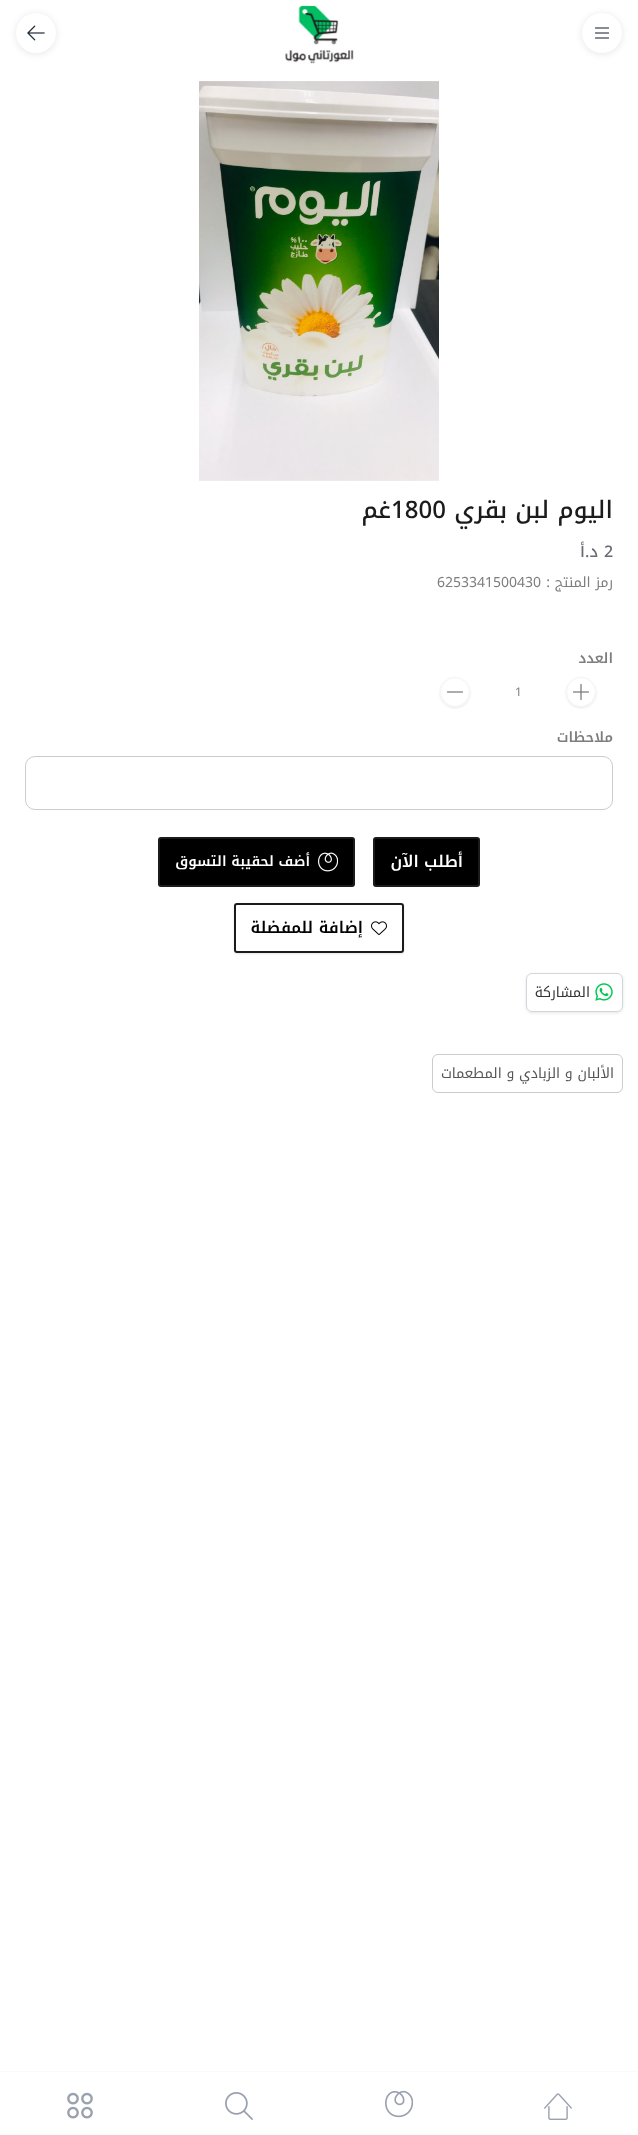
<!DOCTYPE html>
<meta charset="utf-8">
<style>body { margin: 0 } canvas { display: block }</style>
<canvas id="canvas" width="638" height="2135"></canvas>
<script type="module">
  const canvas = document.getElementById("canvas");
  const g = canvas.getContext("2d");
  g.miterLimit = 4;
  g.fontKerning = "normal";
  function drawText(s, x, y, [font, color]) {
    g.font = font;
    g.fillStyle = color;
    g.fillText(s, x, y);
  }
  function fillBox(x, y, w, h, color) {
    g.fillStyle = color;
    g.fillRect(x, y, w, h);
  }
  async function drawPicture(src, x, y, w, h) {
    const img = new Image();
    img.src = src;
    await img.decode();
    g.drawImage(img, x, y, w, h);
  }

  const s1 = ["500 24px Noto Kufi Arabic", "#1B1B1B"];
  const s2 = ["500 16px Noto Kufi Arabic", "#6C6A74"];
  const s3 = ["14px Noto Kufi Arabic", "#7D7D7D"];
  const s4 = ["600 14px Noto Kufi Arabic", "#7D7D7D"];
  const s5 = ["12px Noto Kufi Arabic", "#7D7D7D"];
  const s6 = ["600 16px Noto Kufi Arabic", "#FFFFFF"];
  const s7 = ["600 14px Noto Kufi Arabic", "#FFFFFF"];
  const s8 = ["600 16px Noto Kufi Arabic", "#000000"];
  const s9 = ["14px Noto Kufi Arabic", "#333333"];
  const s10 = ["14px Noto Kufi Arabic", "#555555"];

  fillBox(0, 0, 638, 2135, "#FFFFFF");
  g.fillStyle = "rgba(0, 0, 0, 0.1)";
  g.filter = "blur(3.5px)";
  g.beginPath();
  g.roundRect(582, 14, 40, 40, 20);
  g.fill();
  g.filter = "none";
  g.fillStyle = "#FFFFFF";
  g.beginPath();
  g.arc(602, 33, 20, 0, Math.PI * 2);
  g.fill();
  await drawPicture("pic1.png", 595, 27, 14, 12);
  await drawPicture("pic2.png", 285, 5, 69, 59);
  g.fillStyle = "rgba(0, 0, 0, 0.1)";
  g.filter = "blur(3.5px)";
  g.beginPath();
  g.roundRect(16, 14, 40, 40, 20);
  g.fill();
  g.filter = "none";
  g.fillStyle = "#FFFFFF";
  g.beginPath();
  g.arc(36, 33, 20, 0, Math.PI * 2);
  g.fill();
  await drawPicture("pic3.png", 27, 25, 18, 16);
  await drawPicture("pic4.png", 199, 81, 240, 400);
  g.direction = "rtl";
  drawText("اليوم لبن بقري", 613, 518, s1);
  g.direction = "ltr";
  drawText("1800", 391, 518, s1);
  g.direction = "rtl";
  drawText("غم", 391, 518, s1);
  g.direction = "ltr";
  drawText("2", 604, 557, s2);
  g.direction = "rtl";
  drawText("د.أ", 598, 557, s2);
  drawText("رمز المنتج :", 613, 587, s3);
  g.direction = "ltr";
  drawText("6253341500430", 437, 587, s3);
  g.direction = "rtl";
  drawText("العدد", 613, 663, s4);
  g.save();
  g.beginPath();
  g.moveTo(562, 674);
  g.lineTo(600, 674);
  g.lineTo(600, 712);
  g.lineTo(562, 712);
  g.closePath();
  g.moveTo(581, 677);
  g.bezierCurveTo(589.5, 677, 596, 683.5, 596, 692);
  g.bezierCurveTo(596, 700.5, 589.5, 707, 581, 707);
  g.bezierCurveTo(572.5, 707, 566, 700.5, 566, 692);
  g.bezierCurveTo(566, 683.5, 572.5, 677, 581, 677);
  g.closePath();
  g.clip("evenodd");
  g.fillStyle = "rgba(0, 0, 0, 0.1)";
  g.filter = "blur(1px)";
  g.beginPath();
  g.roundRect(566, 678, 30, 30, 15);
  g.fill();
  g.filter = "none";
  g.restore();
  g.beginPath();
  g.arc(581, 692, 14.5, 0, Math.PI * 2);
  g.strokeStyle = "#F3F3F3";
  g.stroke();
  await drawPicture("pic5.png", 573, 684, 16, 16);
  g.direction = "ltr";
  drawText("1", 515, 696, s5);
  g.save();
  g.beginPath();
  g.moveTo(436, 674);
  g.lineTo(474, 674);
  g.lineTo(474, 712);
  g.lineTo(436, 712);
  g.closePath();
  g.moveTo(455, 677);
  g.bezierCurveTo(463.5, 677, 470, 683.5, 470, 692);
  g.bezierCurveTo(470, 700.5, 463.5, 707, 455, 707);
  g.bezierCurveTo(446.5, 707, 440, 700.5, 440, 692);
  g.bezierCurveTo(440, 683.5, 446.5, 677, 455, 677);
  g.closePath();
  g.clip("evenodd");
  g.fillStyle = "rgba(0, 0, 0, 0.1)";
  g.filter = "blur(1px)";
  g.beginPath();
  g.roundRect(440, 678, 30, 30, 15);
  g.fill();
  g.filter = "none";
  g.restore();
  g.beginPath();
  g.arc(455, 692, 14.5, 0, Math.PI * 2);
  g.stroke();
  await drawPicture("pic6.png", 447, 691, 16, 2);
  g.direction = "rtl";
  drawText("ملاحظات", 613, 742, s4);
  g.beginPath();
  g.roundRect(25.5, 756.5, 587, 53, 9.5);
  g.strokeStyle = "#CCCCCC";
  g.stroke();
  g.fillStyle = "#000000";
  g.beginPath();
  g.roundRect(374, 838, 105, 48, 2);
  g.fill();
  g.strokeStyle = "#1B1B1B";
  g.lineWidth = 2;
  g.stroke();
  drawText("أطلب الآن", 463, 867, s6);
  g.fillStyle = "#000000";
  g.beginPath();
  g.roundRect(159, 838, 195, 48, 2);
  g.fill();
  g.stroke();
  await drawPicture("pic7.png", 318, 852, 20, 20);
  drawText("أضف لحقيبة التسوق", 310, 866, s7);
  g.save();
  g.beginPath();
  g.moveTo(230, 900);
  g.lineTo(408, 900);
  g.lineTo(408, 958);
  g.lineTo(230, 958);
  g.closePath();
  g.moveTo(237, 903);
  g.lineTo(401, 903);
  g.bezierCurveTo(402.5, 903, 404, 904.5, 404, 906);
  g.lineTo(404, 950);
  g.bezierCurveTo(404, 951.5, 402.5, 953, 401, 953);
  g.lineTo(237, 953);
  g.bezierCurveTo(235.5, 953, 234, 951.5, 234, 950);
  g.lineTo(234, 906);
  g.bezierCurveTo(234, 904.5, 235.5, 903, 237, 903);
  g.closePath();
  g.clip("evenodd");
  g.fillStyle = "rgba(0, 0, 0, 0.1)";
  g.filter = "blur(1px)";
  g.beginPath();
  g.roundRect(234, 904, 170, 50, 3);
  g.fill();
  g.filter = "none";
  g.restore();
  g.beginPath();
  g.roundRect(235, 904, 168, 48, 2);
  g.stroke();
  await drawPicture("pic8.png", 371, 921, 16, 14);
  drawText("إضافة للمفضلة", 363, 933, s8);
  g.save();
  g.beginPath();
  g.moveTo(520, 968);
  g.lineTo(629, 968);
  g.lineTo(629, 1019);
  g.lineTo(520, 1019);
  g.closePath();
  g.moveTo(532, 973);
  g.lineTo(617, 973);
  g.bezierCurveTo(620.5, 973, 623, 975.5, 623, 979);
  g.lineTo(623, 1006);
  g.bezierCurveTo(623, 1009.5, 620.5, 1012, 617, 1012);
  g.lineTo(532, 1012);
  g.bezierCurveTo(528.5, 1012, 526, 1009.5, 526, 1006);
  g.lineTo(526, 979);
  g.bezierCurveTo(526, 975.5, 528.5, 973, 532, 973);
  g.closePath();
  g.clip("evenodd");
  g.fillStyle = "rgba(0, 0, 0, 0.1)";
  g.filter = "blur(1.5px)";
  g.beginPath();
  g.roundRect(526, 974, 97, 39, 6);
  g.fill();
  g.filter = "none";
  g.restore();
  g.beginPath();
  g.roundRect(526.5, 973.5, 96, 38, 5.5);
  g.strokeStyle = "#D1D5DC";
  g.lineWidth = 1;
  g.stroke();
  await drawPicture("pic9.png", 595, 983, 18, 18);
  drawText("المشاركة", 590, 997, s9);
  g.beginPath();
  g.roundRect(432.5, 1054.5, 190, 38, 5.5);
  g.strokeStyle = "#CCCCCC";
  g.stroke();
  drawText("الألبان و الزبادي و المطعمات", 614, 1078, s10);
  fillBox(0, 2071, 638, 1, "#F9FAFB");
  await drawPicture("pic10.png", 544, 2093, 28, 27);
  await drawPicture("pic11.png", 385, 2090, 28, 28);
  await drawPicture("pic12.png", 225, 2092, 28, 28);
  await drawPicture("pic13.png", 67, 2092, 26, 27);
</script>
